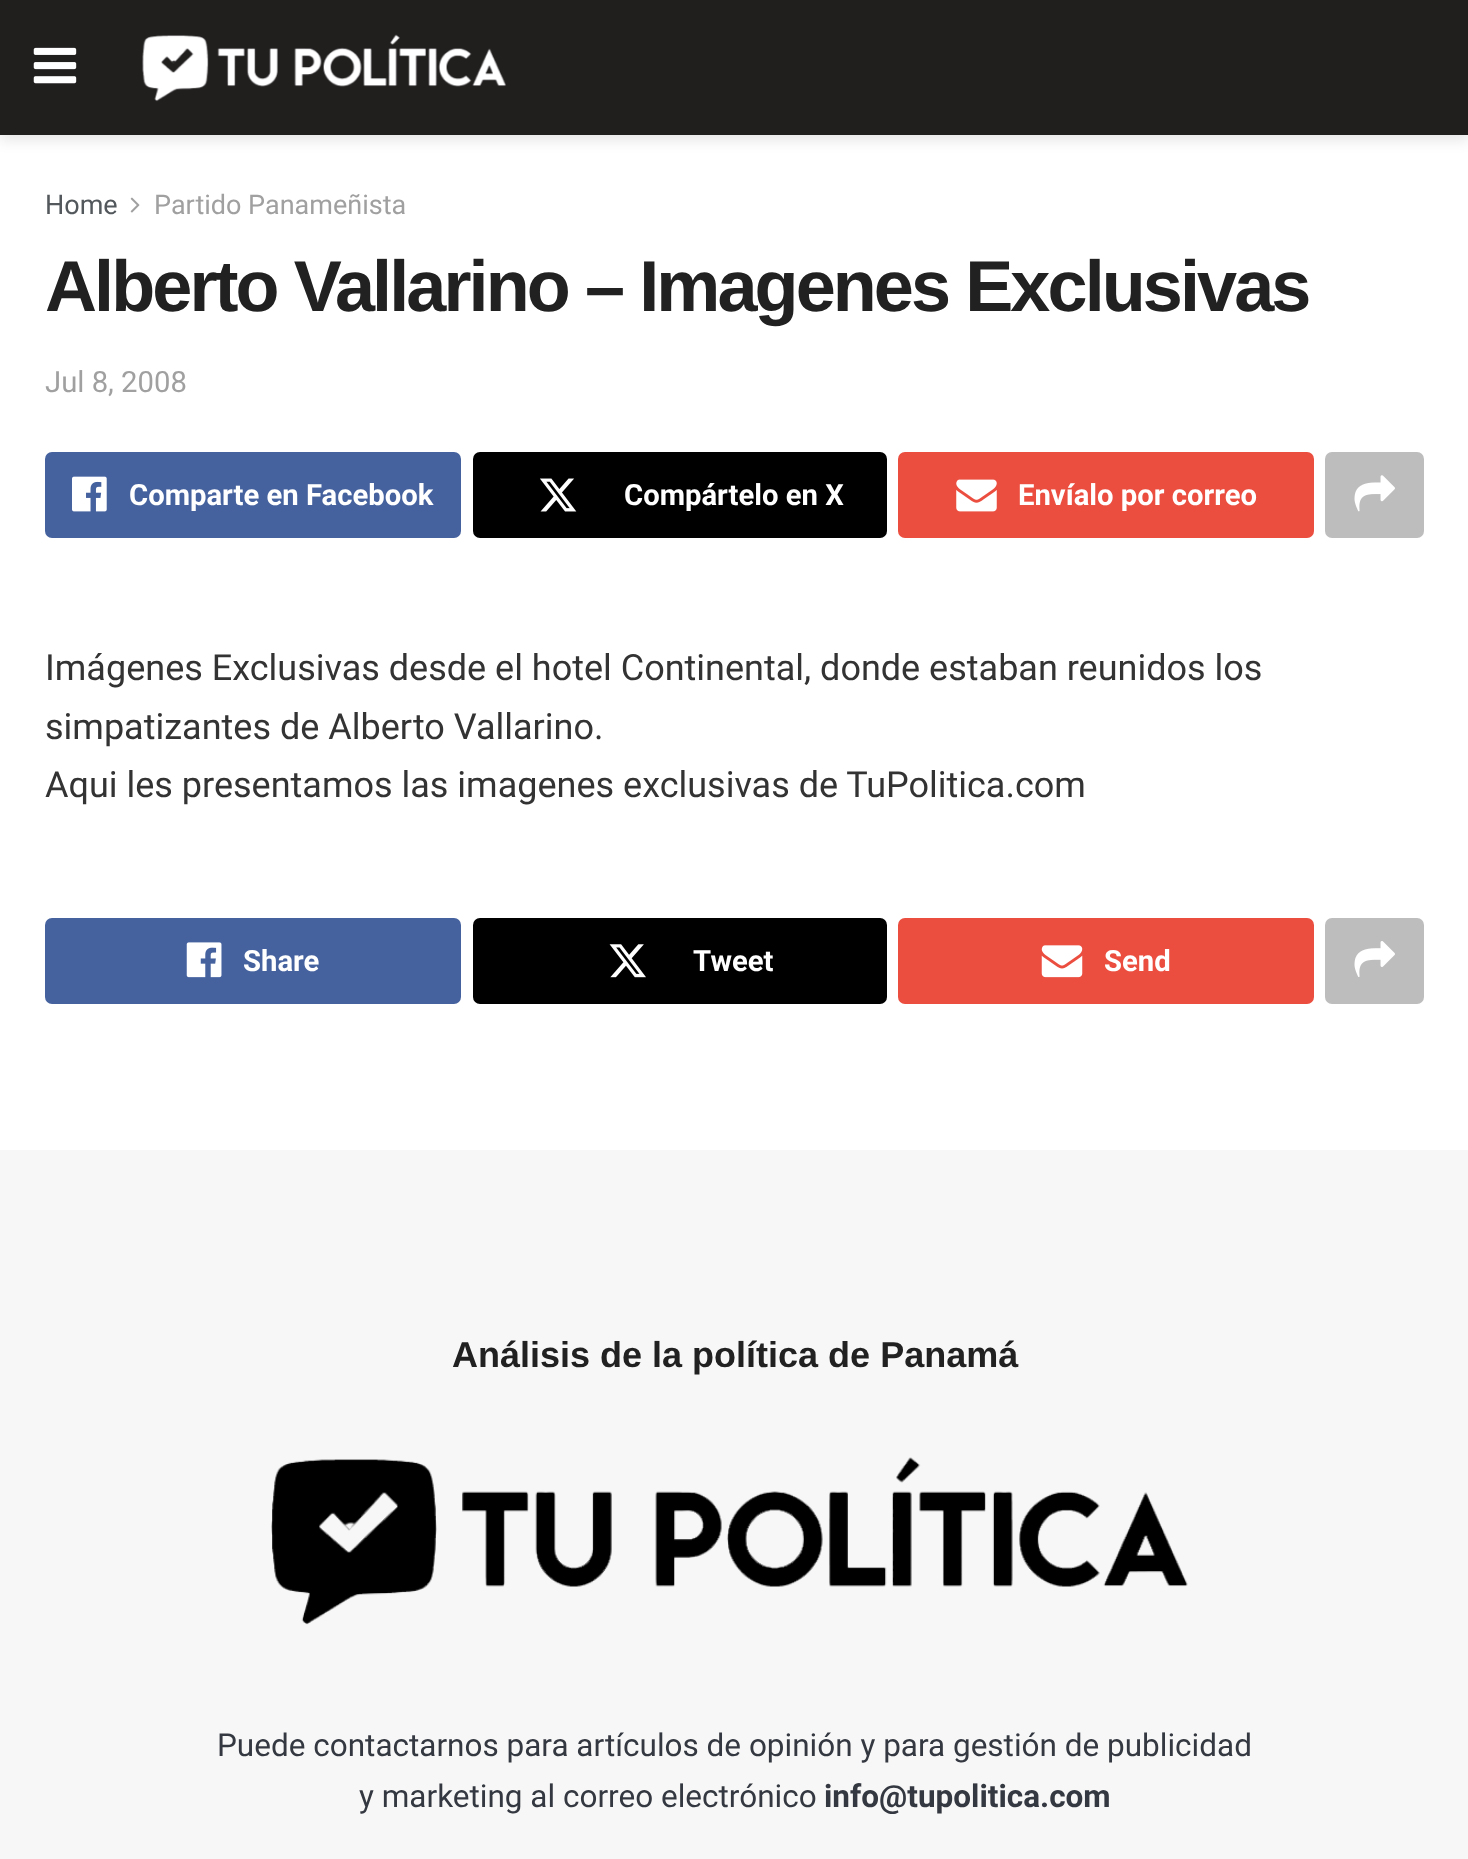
<!DOCTYPE html>
<meta charset="utf-8">
<style>body { margin: 0 } canvas { display: block }</style>
<canvas id="canvas" width="1468" height="1859"></canvas>
<script type="module">
  const canvas = document.getElementById("canvas");
  const g = canvas.getContext("2d");
  g.miterLimit = 4;
  g.fontKerning = "normal";
  function drawText(s, x, y, [font, color]) {
    g.font = font;
    g.fillStyle = color;
    g.fillText(s, x, y);
  }
  function fillBox(x, y, w, h, color) {
    g.fillStyle = color;
    g.fillRect(x, y, w, h);
  }
  function fillRounded(x, y, w, h, r, color) {
    g.fillStyle = color;
    g.beginPath();
    g.roundRect(x, y, w, h, r);
    g.fill();
  }
  async function drawPicture(src, x, y, w, h) {
    const img = new Image();
    img.src = src;
    await img.decode();
    g.drawImage(img, x, y, w, h);
  }

  const s1 = ["27px Roboto", "#53585C"];
  const s2 = ["27px Roboto", "#A0A0A0"];
  const s3 = ["bold 72px Liberation Sans", "#212121"];
  const s4 = ["29.25px Roboto", "#A0A0A0"];
  const s5 = ["bold 29.25px Roboto", "#FFFFFF"];
  const s6 = ["36px Roboto", "#333333"];
  const s7 = ["bold 36px Liberation Sans", "#212121"];
  const s8 = ["31.5px Roboto", "#343840"];
  const s9 = ["bold 31.5px Roboto", "#343840"];

  fillBox(0, 0, 1468, 1859, "#FFFFFF");
  g.fillStyle = "rgba(0, 0, 0, 0.1)";
  g.filter = "blur(7px)";
  g.beginPath();
  g.rect(0, 5, 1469, 135);
  g.fill();
  g.filter = "none";
  fillBox(0, 0, 1468, 135, "#211E1E");
  await drawPicture("pic1.png", 33, 47, 44, 37);
  await drawPicture("pic2.png", 142, 34, 364, 68);
  drawText("Home", 45, 214, s1);
  await drawPicture("pic3.png", 130, 197, 10, 16);
  drawText("Partido Panameñista", 154, 214, s2);
  g.letterSpacing = "-2.9px";
  drawText("Alberto Vallarino – Imagenes Exclusivas", 45, 311, s3);
  g.letterSpacing = "0px";
  drawText("Jul 8, 2008", 45, 392, s4);
  fillRounded(45, 452, 416, 86, 7, "#45629F");
  await drawPicture("pic4.png", 72, 476, 35, 36);
  drawText("Comparte en Facebook", 129, 505, s5);
  fillRounded(473, 452, 414, 86, 7, "#000000");
  await drawPicture("pic5.png", 540, 478, 37, 34);
  drawText("Compártelo en X", 624, 505, s5);
  fillRounded(898, 452, 416, 86, 7, "#EB4D3F");
  await drawPicture("pic6.png", 956, 479, 41, 33);
  drawText("Envíalo por correo", 1018, 505, s5);
  fillRounded(1325, 452, 99, 86, 7, "#BDBDBD");
  await drawPicture("pic7.png", 1354, 475, 41, 37);
  drawText("Imágenes Exclusivas desde el hotel Continental, donde estaban reunidos los", 45, 680, s6);
  drawText("simpatizantes de Alberto Vallarino.", 45, 739, s6);
  drawText("Aqui les presentamos las imagenes exclusivas de TuPolitica.com", 45, 797, s6);
  fillRounded(45, 918, 416, 86, 7, "#45629F");
  await drawPicture("pic8.png", 186, 942, 36, 36);
  drawText("Share", 243, 971, s5);
  fillRounded(473, 918, 414, 86, 7, "#000000");
  await drawPicture("pic9.png", 609, 944, 37, 34);
  drawText("Tweet", 693, 971, s5);
  fillRounded(898, 918, 416, 86, 7, "#EB4D3F");
  await drawPicture("pic10.png", 1041, 945, 42, 33);
  drawText("Send", 1104, 971, s5);
  fillRounded(1325, 918, 99, 86, 7, "#BDBDBD");
  await drawPicture("pic11.png", 1354, 941, 41, 36);
  fillBox(0, 1150, 1468, 709, "#F7F7F7");
  drawText("Análisis de la política de Panamá", 452, 1367, s7);
  await drawPicture("pic12.png", 271, 1457, 917, 168);
  drawText("Puede contactarnos para artículos de opinión y para gestión de publicidad", 217, 1756, s8);
  drawText("y marketing al correo electrónico", 359, 1807, s8);
  drawText("info@tupolitica.com", 824, 1807, s9);
</script>
